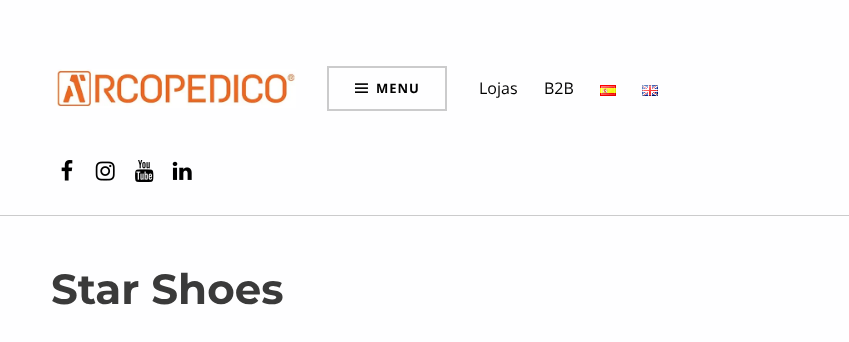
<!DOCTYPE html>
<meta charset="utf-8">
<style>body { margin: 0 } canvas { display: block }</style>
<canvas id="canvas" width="849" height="342"></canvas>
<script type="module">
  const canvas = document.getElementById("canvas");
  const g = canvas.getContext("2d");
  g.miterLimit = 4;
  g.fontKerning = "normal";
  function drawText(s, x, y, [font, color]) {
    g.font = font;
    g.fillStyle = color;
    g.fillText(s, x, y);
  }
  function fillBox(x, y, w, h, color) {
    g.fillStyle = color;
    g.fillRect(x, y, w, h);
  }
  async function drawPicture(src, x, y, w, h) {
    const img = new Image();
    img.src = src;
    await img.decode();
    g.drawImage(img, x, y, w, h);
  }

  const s1 = ["bold 13px Open Sans", "#000000"];
  const s2 = ["16px Open Sans", "#000000"];
  const s3 = ["bold 42px Montserrat", "#3A3A3A"];

  fillBox(0, 0, 849, 342, "#FEFEFF");
  fillBox(0, 215, 849, 1, "#CBCBCC");
  await drawPicture("pic1.png", 56, 69, 240, 39);
  g.strokeStyle = "#CBCBCC";
  g.lineWidth = 2;
  g.strokeRect(328, 67, 118, 43);
  await drawPicture("pic2.png", 355, 83, 13, 10);
  g.letterSpacing = "1px";
  drawText("MENU", 376, 93, s1);
  g.letterSpacing = "0px";
  drawText("Lojas", 479, 94, s2);
  drawText("B2B", 544, 94, s2);
  await drawPicture("pic3.png", 600, 85, 16, 11);
  await drawPicture("pic4.png", 642, 85, 16, 11);
  await drawPicture("pic5.png", 61, 160, 12, 21);
  await drawPicture("pic6.png", 95, 161, 20, 20);
  await drawPicture("pic7.png", 135, 160, 19, 22);
  await drawPicture("pic8.png", 172, 161, 20, 19);
  drawText("Star Shoes", 51, 304, s3);
</script>
